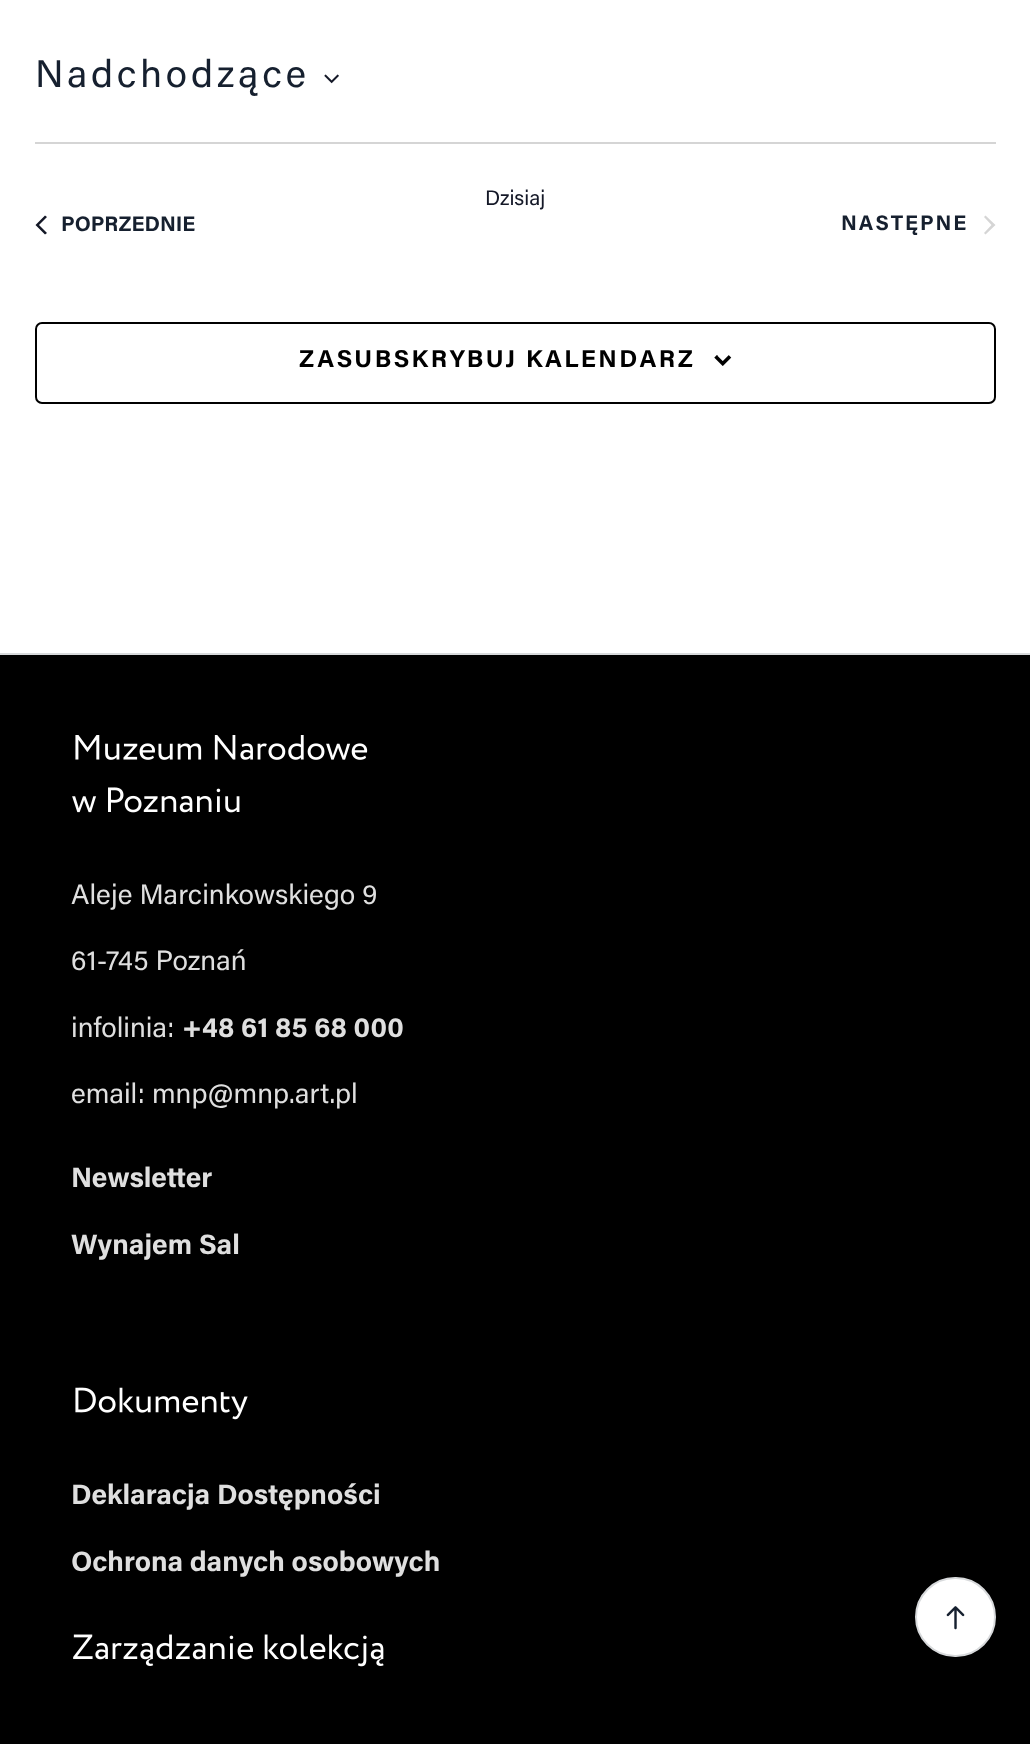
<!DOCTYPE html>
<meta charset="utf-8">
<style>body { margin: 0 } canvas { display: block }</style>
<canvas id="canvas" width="1030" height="1744"></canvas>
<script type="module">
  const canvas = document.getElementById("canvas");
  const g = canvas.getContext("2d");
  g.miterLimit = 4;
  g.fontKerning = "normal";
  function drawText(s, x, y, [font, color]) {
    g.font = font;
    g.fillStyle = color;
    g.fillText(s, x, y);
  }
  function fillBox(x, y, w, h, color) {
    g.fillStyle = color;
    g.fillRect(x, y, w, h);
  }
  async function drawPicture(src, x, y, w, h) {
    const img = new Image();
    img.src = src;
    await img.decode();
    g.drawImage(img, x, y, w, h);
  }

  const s1 = ["38.5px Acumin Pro", "#16202F"];
  const s2 = ["21px Acumin Pro", "#141827"];
  const s3 = ["bold 21px Acumin Pro", "#16202F"];
  const s4 = ["bold 24.5px Acumin Pro", "#000000"];
  const s5 = ["28px Acumin Pro", "#DFDFDF"];
  const s6 = ["bold 28px Acumin Pro", "#DFDFDF"];

  fillBox(0, 0, 1030, 1744, "#FFFFFF");
  g.letterSpacing = "3.8px";
  drawText("Nadchodzące", 35, 87, s1);
  await drawPicture("pic1.png", 324, 74, 15, 10);
  fillBox(35, 142, 961, 2, "#D5D5D5");
  g.letterSpacing = "0px";
  drawText("Dzisiaj", 485, 205, s2);
  g.beginPath();
  g.moveTo(47, 233);
  g.lineTo(45, 234.5);
  g.lineTo(35.5, 225);
  g.lineTo(45, 215.5);
  g.lineTo(47, 217);
  g.lineTo(39, 225);
  g.closePath();
  g.fill();
  drawText("POPRZEDNIE", 61, 231, s3);
  g.letterSpacing = "2px";
  drawText("NASTĘPNE", 841, 230, s3);
  g.fillStyle = "#D5D5D5";
  g.beginPath();
  g.moveTo(984, 217);
  g.lineTo(985.5, 215.5);
  g.lineTo(995.5, 225);
  g.lineTo(985.5, 234.5);
  g.lineTo(984, 233);
  g.lineTo(991.5, 225);
  g.closePath();
  g.fill();
  g.beginPath();
  g.roundRect(36, 323, 959, 80, 6);
  g.strokeStyle = "#000000";
  g.lineWidth = 2;
  g.stroke();
  g.letterSpacing = "2.45px";
  drawText("ZASUBSKRYBUJ KALENDARZ", 299, 367, s4);
  await drawPicture("pic2.png", 714, 355, 18, 11);
  fillBox(0, 655, 1030, 1089, "#000000");
  fillBox(0, 653, 1030, 2, "#D8DADC");
  await drawPicture("pic3.png", 75, 735, 293, 25);
  await drawPicture("pic4.png", 72, 787, 168, 26);
  g.letterSpacing = "0px";
  drawText("Aleje Marcinkowskiego 9", 71, 904, s5);
  drawText("61-745 Poznań", 71, 970, s5);
  drawText("infolinia:", 71, 1037, s5);
  drawText("+48 61 85 68 000", 182, 1037, s6);
  drawText("email: mnp@mnp.art.pl", 71, 1103, s5);
  drawText("Newsletter", 71, 1187, s6);
  drawText("Wynajem Sal", 71, 1254, s6);
  await drawPicture("pic5.png", 75, 1387, 173, 33);
  drawText("Deklaracja Dostępności", 71, 1504, s6);
  drawText("Ochrona danych osobowych", 71, 1571, s6);
  await drawPicture("pic6.png", 73, 1634, 311, 33);
  g.fillStyle = "#FFFFFF";
  g.beginPath();
  g.roundRect(916, 1578, 79, 78, 39);
  g.fill();
  g.strokeStyle = "#D8DADC";
  g.stroke();
  await drawPicture("pic7.png", 946, 1606, 19, 24);
</script>
